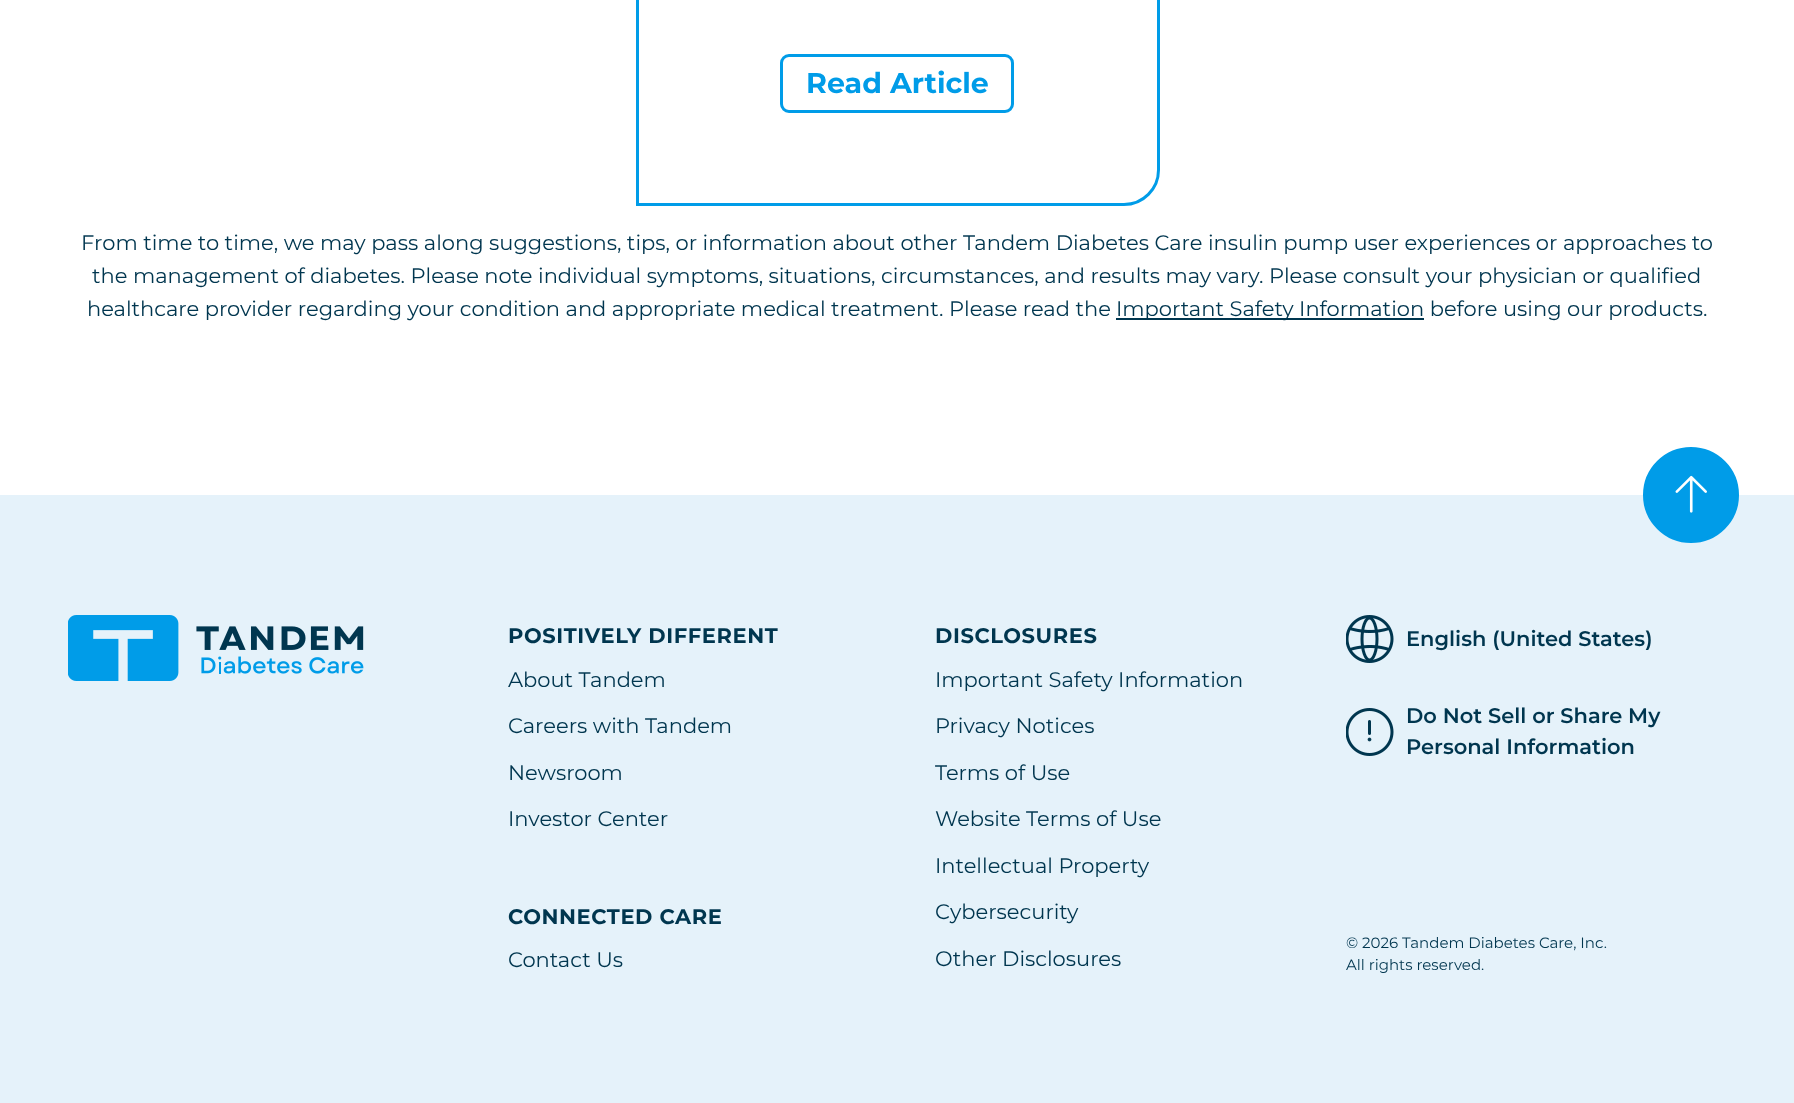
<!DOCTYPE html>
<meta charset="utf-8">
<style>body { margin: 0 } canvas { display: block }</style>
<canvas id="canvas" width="1794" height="1103"></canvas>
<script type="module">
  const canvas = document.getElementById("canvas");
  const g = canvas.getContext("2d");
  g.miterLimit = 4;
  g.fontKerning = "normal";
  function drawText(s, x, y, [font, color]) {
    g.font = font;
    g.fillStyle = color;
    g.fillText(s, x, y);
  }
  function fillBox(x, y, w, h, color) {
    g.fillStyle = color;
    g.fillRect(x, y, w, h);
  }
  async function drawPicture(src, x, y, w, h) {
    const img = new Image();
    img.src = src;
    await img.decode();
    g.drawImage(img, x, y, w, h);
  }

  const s1 = ["bold 28.5px Montserrat", "#009CE8"];
  const s2 = ["21px Montserrat", "#00364F"];
  const s3 = ["bold 21px Montserrat", "#00364F"];
  const s4 = ["600 21px Montserrat", "#00364F"];
  const s5 = ["15px Montserrat", "#00364F"];

  fillBox(0, 0, 1794, 1103, "#FFFFFF");
  g.beginPath();
  g.moveTo(672, -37.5);
  g.lineTo(1158.5, -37.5);
  g.lineTo(1158.5, 170);
  g.bezierCurveTo(1158.5, 189, 1143, 204.5, 1124, 204.5);
  g.lineTo(637.5, 204.5);
  g.lineTo(637.5, -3);
  g.bezierCurveTo(637.5, -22, 653, -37.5, 672, -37.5);
  g.closePath();
  g.strokeStyle = "#009CE8";
  g.lineWidth = 3;
  g.stroke();
  g.beginPath();
  g.roundRect(781.5, 55.5, 231, 56, 7.5);
  g.stroke();
  drawText("Read Article", 806, 93, s1);
  drawText("From time to time, we may pass along suggestions, tips, or information about other Tandem Diabetes Care insulin pump user experiences or approaches to", 81, 250, s2);
  drawText("the management of diabetes. Please note individual symptoms, situations, circumstances, and results may vary. Please consult your physician or qualified", 92, 283, s2);
  drawText("healthcare provider regarding your condition and appropriate medical treatment. Please read the", 87, 316, s2);
  fillBox(1116, 318, 308, 2, "#00364F");
  drawText("Important Safety Information before using our products.", 1116, 316, s2);
  fillBox(0, 495, 1794, 608, "#E5F2FA");
  g.fillStyle = "#009CE8";
  g.beginPath();
  g.arc(1691, 495, 46.5, 0, Math.PI * 2);
  g.fill();
  g.stroke();
  await drawPicture("pic1.png", 1675, 475, 32, 38);
  await drawPicture("pic2.png", 68, 615, 296, 66);
  g.letterSpacing = "0.6px";
  drawText("POSITIVELY DIFFERENT", 508, 643, s3);
  g.letterSpacing = "0px";
  drawText("About Tandem", 508, 687, s2);
  drawText("Careers with Tandem", 508, 733, s2);
  drawText("Newsroom", 508, 780, s2);
  drawText("Investor Center", 508, 826, s2);
  g.letterSpacing = "0.6px";
  drawText("CONNECTED CARE", 508, 924, s3);
  g.letterSpacing = "0px";
  drawText("Contact Us", 508, 967, s2);
  g.letterSpacing = "0.6px";
  drawText("DISCLOSURES", 935, 643, s3);
  g.letterSpacing = "0px";
  drawText("Important Safety Information", 935, 687, s2);
  drawText("Privacy Notices", 935, 733, s2);
  drawText("Terms of Use", 935, 780, s2);
  drawText("Website Terms of Use", 935, 826, s2);
  drawText("Intellectual Property", 935, 873, s2);
  drawText("Cybersecurity", 935, 919, s2);
  drawText("Other Disclosures", 935, 966, s2);
  await drawPicture("pic3.png", 1346, 615, 48, 48);
  drawText("English (United States)", 1406, 646, s4);
  await drawPicture("pic4.png", 1346, 708, 48, 48);
  drawText("Do Not Sell or Share My", 1406, 723, s4);
  drawText("Personal Information", 1406, 754, s4);
  drawText("© 2026 Tandem Diabetes Care, Inc.", 1346, 948, s5);
  drawText("All rights reserved.", 1346, 970, s5);
</script>
